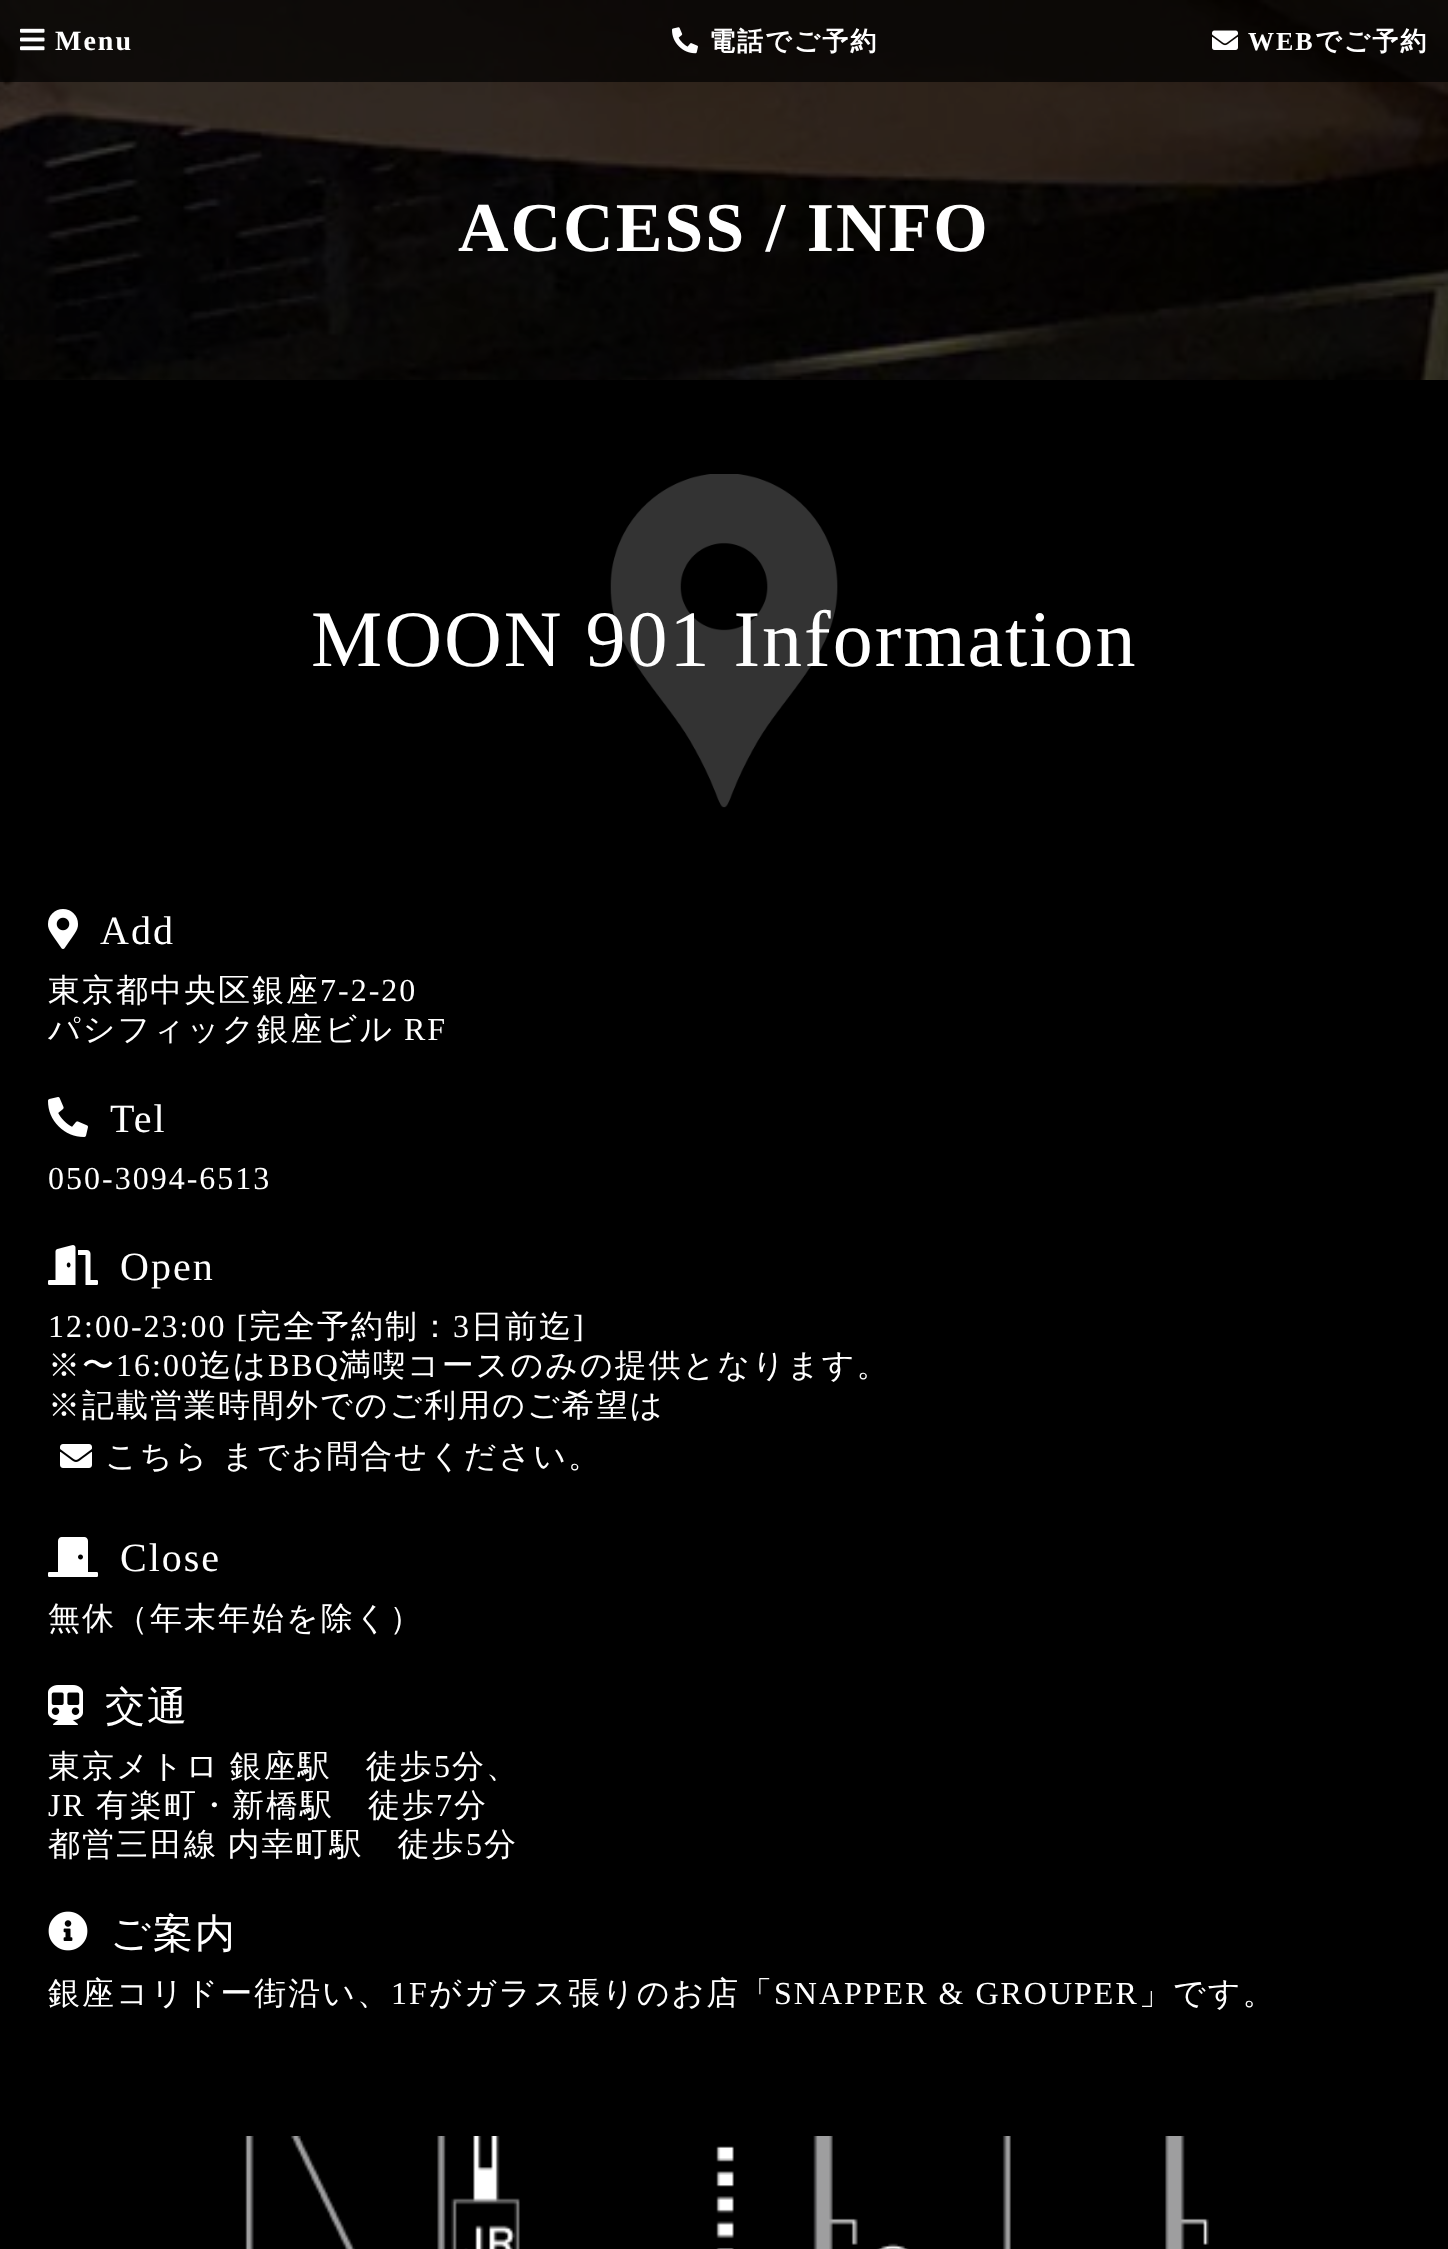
<!DOCTYPE html>
<meta charset="utf-8">
<style>body { margin: 0 } canvas { display: block }</style>
<canvas id="canvas" width="1448" height="2249"></canvas>
<script type="module">
  const canvas = document.getElementById("canvas");
  const g = canvas.getContext("2d");
  g.miterLimit = 4;
  g.fontKerning = "normal";
  function drawText(s, x, y, [font, color]) {
    g.font = font;
    g.fillStyle = color;
    g.fillText(s, x, y);
  }
  function fillBox(x, y, w, h, color) {
    g.fillStyle = color;
    g.fillRect(x, y, w, h);
  }
  async function drawPicture(src, x, y, w, h) {
    const img = new Image();
    img.src = src;
    await img.decode();
    g.drawImage(img, x, y, w, h);
  }

  const s1 = ["bold 28px Liberation Serif", "#FFFFFF"];
  const s2 = ["bold 26px WenQuanYi Zen Hei", "#FFFFFF"];
  const s3 = ["bold 26px Liberation Serif", "#FFFFFF"];
  const s4 = ["bold 70px Liberation Serif", "#FFFFFF"];
  const s5 = ["80px Liberation Serif", "#FFFFFF"];
  const s6 = ["40px Liberation Serif", "#FFFFFF"];
  const s7 = ["500 32px WenQuanYi Zen Hei", "#FFFFFF"];
  const s8 = ["32px Liberation Serif", "#FFFFFF"];
  const s9 = ["500 40px WenQuanYi Zen Hei", "#FFFFFF"];

  fillBox(0, 0, 1448, 2249, "#000000");
  await drawPicture("pic4.png", 0, 0, 1448, 380);
  fillBox(0, 0, 1448, 82, "rgba(0, 0, 0, 0.7)");
  await drawPicture("pic1.png", 20, 28, 25, 23);
  g.letterSpacing = "2px";
  drawText("Menu", 55, 50, s1);
  await drawPicture("pic2.png", 672, 27, 26, 27);
  drawText("電話でご予約", 709, 50, s2);
  await drawPicture("pic3.png", 1212, 30, 26, 20);
  drawText("WEB", 1248, 50, s3);
  drawText("でご予約", 1315, 50, s2);
  drawText("ACCESS / INFO", 458, 251, s4);
  await drawPicture("pic5.png", 610, 474, 228, 334);
  drawText("MOON 901 Information", 311, 666, s5);
  await drawPicture("pic6.png", 48, 909, 30, 40);
  drawText("Add", 100, 944, s6);
  drawText("東京都中央区銀座", 48, 1001, s7);
  drawText("7-2-20", 320, 1001, s8);
  drawText("パシフィック銀座ビル", 48, 1040, s7);
  drawText("RF", 404, 1040, s8);
  await drawPicture("pic7.png", 48, 1097, 40, 40);
  drawText("Tel", 110, 1132, s6);
  drawText("050-3094-6513", 48, 1189, s8);
  await drawPicture("pic8.png", 48, 1245, 50, 40);
  drawText("Open", 120, 1280, s6);
  drawText("12:00-23:00 [", 48, 1337, s8);
  drawText("完全予約制：", 249, 1337, s7);
  drawText("3", 453, 1337, s8);
  drawText("日前迄", 471, 1337, s7);
  drawText("]", 573, 1337, s8);
  drawText("※〜", 48, 1376, s7);
  drawText("16:00", 116, 1376, s8);
  drawText("迄は", 199, 1376, s7);
  drawText("BBQ", 268, 1376, s8);
  drawText("満喫コースのみの提供となります。", 339, 1376, s7);
  drawText("※記載営業時間外でのご利用のご希望は", 48, 1416, s7);
  await drawPicture("pic9.png", 60, 1444, 32, 24);
  drawText("こちら", 105, 1467, s7);
  drawText("までお問合せください。", 222, 1467, s7);
  await drawPicture("pic10.png", 48, 1537, 50, 40);
  drawText("Close", 120, 1571, s6);
  drawText("無休（年末年始を除く）", 48, 1629, s7);
  await drawPicture("pic11.png", 48, 1685, 35, 40);
  drawText("交通", 105, 1720, s9);
  g.wordSpacing = "-2px";
  drawText("東京メトロ 銀座駅　徒歩", 48, 1777, s7);
  g.wordSpacing = "0px";
  drawText("5", 434, 1777, s8);
  drawText("分、", 452, 1777, s7);
  drawText("JR", 48, 1816, s8);
  drawText("有楽町・新橋駅　徒歩", 96, 1816, s7);
  drawText("7", 436, 1816, s8);
  drawText("分", 454, 1816, s7);
  g.wordSpacing = "-2px";
  drawText("都営三田線 内幸町駅　徒歩", 48, 1855, s7);
  g.wordSpacing = "0px";
  drawText("5", 466, 1855, s8);
  drawText("分", 484, 1855, s7);
  await drawPicture("pic12.png", 48, 1911, 40, 40);
  drawText("ご案内", 110, 1947, s9);
  drawText("銀座コリドー街沿い、", 48, 2004, s7);
  drawText("1F", 391, 2004, s8);
  drawText("がガラス張りのお店「", 429, 2004, s7);
  drawText("SNAPPER & GROUPER", 774, 2004, s8);
  drawText("」です。", 1139, 2004, s7);
  await drawPicture("pic13.png", 245, 2136, 964, 113);
</script>
